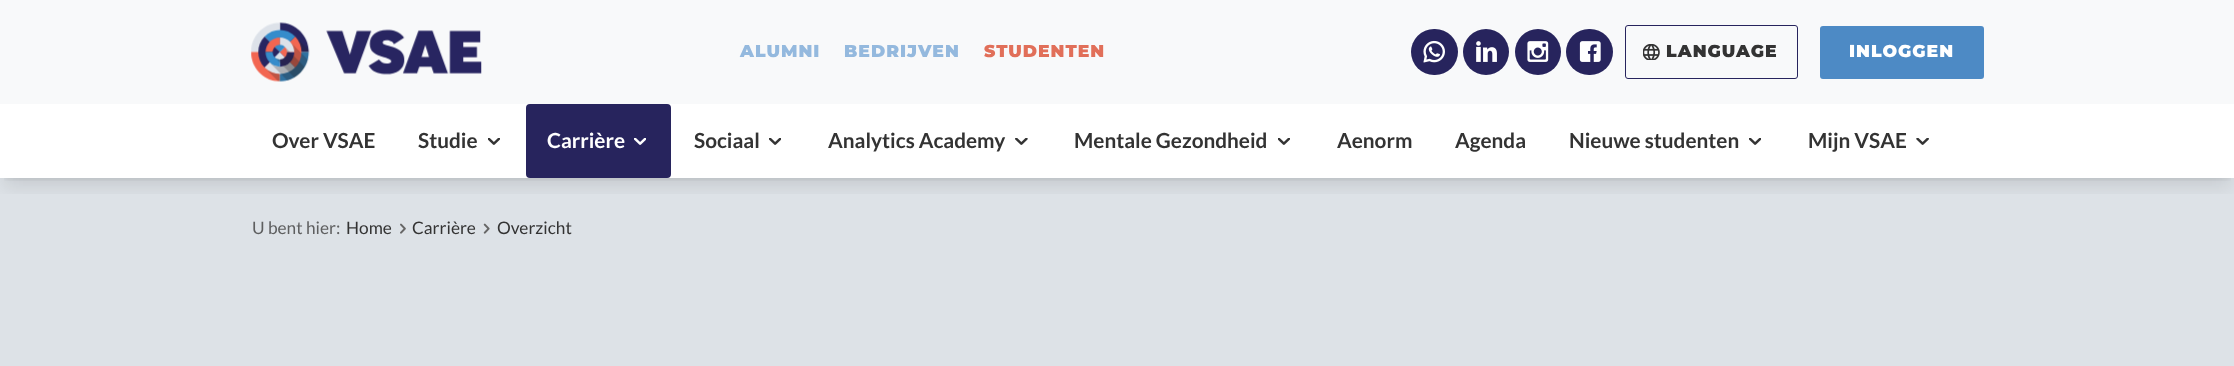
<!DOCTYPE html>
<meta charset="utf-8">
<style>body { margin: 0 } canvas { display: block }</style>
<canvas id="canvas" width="2234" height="366"></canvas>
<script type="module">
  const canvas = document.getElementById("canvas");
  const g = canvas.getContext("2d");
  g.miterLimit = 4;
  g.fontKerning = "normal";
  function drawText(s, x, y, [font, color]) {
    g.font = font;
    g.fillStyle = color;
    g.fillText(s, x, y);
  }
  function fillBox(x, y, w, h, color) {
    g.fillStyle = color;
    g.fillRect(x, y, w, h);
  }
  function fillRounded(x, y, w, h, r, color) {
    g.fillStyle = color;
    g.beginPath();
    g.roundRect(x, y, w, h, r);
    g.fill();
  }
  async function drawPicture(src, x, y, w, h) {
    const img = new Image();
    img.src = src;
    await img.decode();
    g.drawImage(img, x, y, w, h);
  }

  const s1 = ["100 17.25px Montserrat", "#94B9DE"];
  const s2 = ["100 17.25px Montserrat", "#E16F59"];
  const s3 = ["100 17.25px Montserrat", "#333333"];
  const s4 = ["100 17.25px Montserrat", "#FFFFFF"];
  const s5 = ["bold 20.75px Lato", "#333333"];
  const s6 = ["bold 20.75px Lato", "#FFFFFF"];
  const s7 = ["17.25px Lato", "#5E5F60"];
  const s8 = ["17.25px Lato", "#333333"];

  fillBox(0, 0, 2234, 366, "#DDE2E7");
  g.save();
  g.beginPath();
  g.rect(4, 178, 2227, 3);
  g.clip();
  g.fillStyle = "rgba(0, 0, 0, 0.1)";
  g.filter = "blur(4px)";
  g.beginPath();
  g.rect(5, 10, 2225, 168);
  g.fill();
  g.filter = "none";
  g.restore();
  g.save();
  g.beginPath();
  g.rect(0, 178, 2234, 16);
  g.clip();
  g.fillStyle = "rgba(0, 0, 0, 0.1)";
  g.filter = "blur(9.5px)";
  g.beginPath();
  g.rect(4, 16, 2227, 170);
  g.fill();
  g.filter = "none";
  g.restore();
  fillBox(0, 0, 2234, 104, "rgba(255, 255, 255, 0.8)");
  await drawPicture("pic1.png", 251, 22, 231, 60);
  g.letterSpacing = "1px";
  drawText("ALUMNI", 740, 57, s1);
  drawText("BEDRIJVEN", 844, 57, s1);
  drawText("STUDENTEN", 984, 57, s2);
  fillRounded(1411, 29, 47, 46, 23, "#27245D");
  await drawPicture("pic2.png", 1423, 40, 22, 23);
  g.beginPath();
  g.arc(1486, 52, 23, 0, Math.PI * 2);
  g.fill();
  await drawPicture("pic3.png", 1476, 41, 21, 21);
  g.beginPath();
  g.arc(1538, 52, 23, 0, Math.PI * 2);
  g.fill();
  await drawPicture("pic4.png", 1527, 41, 22, 21);
  fillRounded(1566, 29, 47, 46, 23, "#27245D");
  await drawPicture("pic5.png", 1579, 41, 22, 21);
  g.beginPath();
  g.roundRect(1625.5, 25.5, 172, 53, 2.5);
  g.strokeStyle = "#27245D";
  g.stroke();
  await drawPicture("pic6.png", 1643, 44, 17, 16);
  drawText("LANGUAGE", 1666, 57, s3);
  g.fillStyle = "#4D8AC5";
  g.beginPath();
  g.roundRect(1821.5, 27.5, 161, 50, 1.5);
  g.fill();
  g.strokeStyle = "#4D8AC5";
  g.lineWidth = 3;
  g.stroke();
  drawText("INLOGGEN", 1849, 57, s4);
  g.beginPath();
  g.moveTo(1175, 178);
  g.lineTo(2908, 178);
  g.lineTo(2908, 104);
  g.lineTo(1984, 104);
  g.lineTo(1984, 178);
  g.closePath();
  g.fill();
  g.beginPath();
  g.moveTo(-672, 104);
  g.lineTo(-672, 178);
  g.lineTo(1060, 178);
  g.lineTo(251, 178);
  g.lineTo(251, 104);
  g.closePath();
  g.fill();
  fillBox(251, 104, 1733, 74, "#FFFFFF");
  g.letterSpacing = "0px";
  drawText("Over VSAE", 272, 148, s5);
  drawText("Studie", 418, 148, s5);
  await drawPicture("pic7.png", 488, 138, 12, 7);
  fillRounded(526, 104, 145, 74, 4, "#27245D");
  drawText("Carrière", 547, 148, s6);
  await drawPicture("pic8.png", 634, 138, 12, 7);
  drawText("Sociaal", 694, 148, s5);
  await drawPicture("pic9.png", 769, 138, 12, 7);
  drawText("Analytics Academy", 828, 148, s5);
  await drawPicture("pic10.png", 1015, 138, 13, 7);
  drawText("Mentale Gezondheid", 1074, 148, s5);
  await drawPicture("pic7.png", 1278, 138, 12, 7);
  drawText("Aenorm", 1337, 148, s5);
  drawText("Agenda", 1455, 148, s5);
  drawText("Nieuwe studenten", 1569, 148, s5);
  await drawPicture("pic9.png", 1749, 138, 12, 7);
  drawText("Mijn VSAE", 1808, 148, s5);
  await drawPicture("pic11.png", 1916, 138, 13, 7);
  drawText("U bent hier:", 252, 234, s7);
  drawText("Home", 346, 234, s8);
  await drawPicture("pic12.png", 400, 223, 6, 11);
  drawText("Carrière", 412, 234, s8);
  await drawPicture("pic13.png", 483, 223, 7, 11);
  drawText("Overzicht", 497, 234, s8);
</script>
